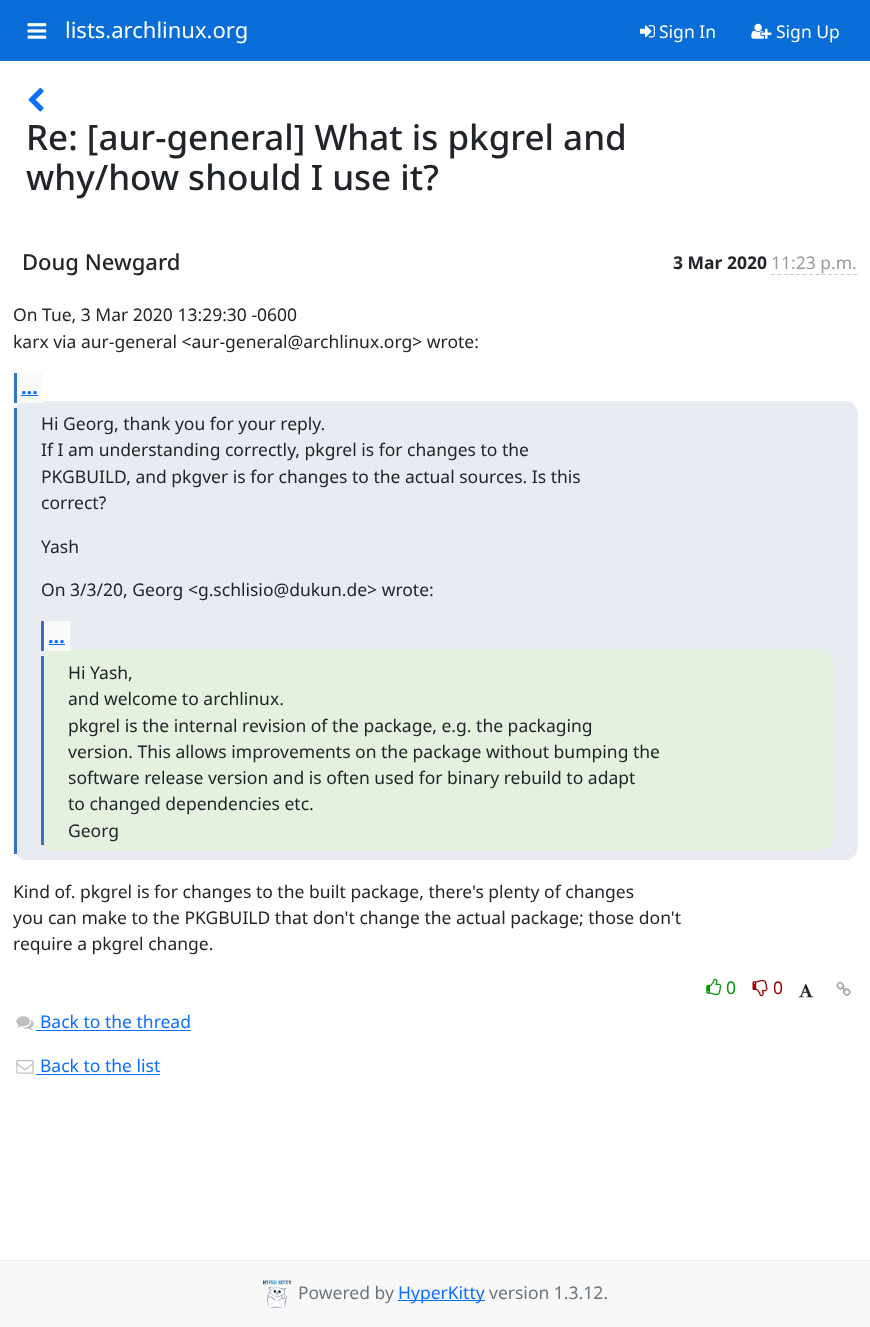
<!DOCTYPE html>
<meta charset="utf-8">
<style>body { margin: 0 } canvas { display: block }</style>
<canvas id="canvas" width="870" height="1327"></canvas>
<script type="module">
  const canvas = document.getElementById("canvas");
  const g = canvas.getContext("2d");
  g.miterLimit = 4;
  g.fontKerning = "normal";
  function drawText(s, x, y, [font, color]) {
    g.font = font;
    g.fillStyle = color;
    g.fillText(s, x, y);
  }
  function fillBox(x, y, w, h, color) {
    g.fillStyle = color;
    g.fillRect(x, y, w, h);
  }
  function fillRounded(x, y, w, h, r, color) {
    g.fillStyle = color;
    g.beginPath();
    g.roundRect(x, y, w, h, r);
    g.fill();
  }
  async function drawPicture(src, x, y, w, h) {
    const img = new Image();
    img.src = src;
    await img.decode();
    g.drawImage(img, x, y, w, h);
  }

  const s1 = ["22px Noto Sans", "#FFFFFF"];
  const s2 = ["17.5px Noto Sans", "#FFFFFF"];
  const s3 = ["500 35px Noto Sans", "#212529"];
  const s4 = ["500 22px Noto Sans", "#212529"];
  const s5 = ["bold 17.5px Noto Sans", "#212529"];
  const s6 = ["17.5px Noto Sans", "#999999"];
  const s7 = ["17.5px Noto Sans", "#212529"];
  const s8 = ["bold 20px Noto Sans", "#0D6EFD"];
  const s9 = ["17.5px Noto Sans", "#009900"];
  const s10 = ["17.5px Noto Sans", "#990000"];
  const s11 = ["17.5px Noto Sans", "#0D6EFD"];
  const s12 = ["17.5px Noto Sans", "#6C757D"];

  fillBox(0, 0, 870, 1327, "#FFFFFF");
  fillBox(0, 0, 870, 61, "#086DD7");
  await drawPicture("pic1.png", 27, 23, 20, 16);
  drawText("lists.archlinux.org", 65, 38, s1);
  await drawPicture("pic2.png", 640, 25, 15, 13);
  drawText("Sign In", 659, 38, s2);
  await drawPicture("pic3.png", 751, 23, 21, 16);
  drawText("Sign Up", 776, 38, s2);
  await drawPicture("pic4.png", 28, 87, 16, 25);
  drawText("Re: [aur-general] What is pkgrel and", 26, 150, s3);
  drawText("why/how should I use it?", 26, 190, s3);
  drawText("Doug Newgard", 22, 270, s4);
  drawText("3 Mar 2020", 673, 269, s5);
  g.beginPath();
  g.moveTo(771, 274.5);
  g.lineTo(857.5, 274.5);
  g.strokeStyle = "#CCCCCC";
  g.lineWidth = 1.2;
  g.setLineDash([3.75, 2.6]);
  g.stroke();
  drawText("11:23 p.m.", 771, 269, s6);
  drawText("On Tue, 3 Mar 2020 13:29:30 -0600", 13, 321, s7);
  drawText("karx via aur-general <aur-general@archlinux.org> wrote:", 13, 348, s7);
  fillRounded(14, 401, 844, 459, 13, "#E8ECF2");
  fillBox(17, 373, 26, 30, "#FAFAFA");
  drawText("...", 21, 394, s8);
  fillBox(14, 373, 3, 30, "#3771C8");
  fillBox(21, 395, 17, 1, "#0D6EFD");
  fillBox(14, 408, 3, 446, "#3771C8");
  drawText("Hi Georg, thank you for your reply.", 41, 430, s7);
  drawText("If I am understanding correctly, pkgrel is for changes to the", 41, 456, s7);
  drawText("PKGBUILD, and pkgver is for changes to the actual sources. Is this", 41, 483, s7);
  drawText("correct?", 41, 509, s7);
  drawText("Yash", 41, 553, s7);
  drawText("On 3/3/20, Georg <g.schlisio@dukun.de> wrote:", 41, 596, s7);
  fillRounded(41, 650, 792, 201, 13, "#E4F1DF");
  fillBox(44, 621, 26, 30, "#FAFAFA");
  drawText("...", 48, 643, s8);
  fillBox(41, 621, 3, 30, "#3771C8");
  fillBox(49, 644, 16, 1, "#0D6EFD");
  fillBox(41, 656, 3, 189, "#3771C8");
  drawText("Hi Yash,", 68, 679, s7);
  drawText("and welcome to archlinux.", 68, 705, s7);
  drawText("pkgrel is the internal revision of the package, e.g. the packaging", 68, 732, s7);
  drawText("version. This allows improvements on the package without bumping the", 68, 758, s7);
  drawText("software release version and is often used for binary rebuild to adapt", 68, 784, s7);
  drawText("to changed dependencies etc.", 68, 810, s7);
  drawText("Georg", 68, 837, s7);
  drawText("Kind of. pkgrel is for changes to the built package, there's plenty of changes", 13, 898, s7);
  drawText("you can make to the PKGBUILD that don't change the actual package; those don't", 13, 924, s7);
  drawText("require a pkgrel change.", 13, 950, s7);
  await drawPicture("pic5.png", 706, 978, 16, 17);
  drawText("0", 726, 994, s9);
  await drawPicture("pic6.png", 752, 980, 16, 17);
  drawText("0", 773, 994, s10);
  await drawPicture("pic7.png", 798, 984, 15, 14);
  await drawPicture("pic8.png", 836, 981, 15, 15);
  await drawPicture("pic9.png", 16, 1016, 18, 14);
  drawText("Back to the thread", 40, 1028, s11);
  fillBox(36, 1030, 155, 1, "#0D6EFD");
  await drawPicture("pic10.png", 16, 1060, 18, 14);
  drawText("Back to the list", 40, 1072, s11);
  fillBox(36, 1074, 124, 1, "#0D6EFD");
  fillBox(0, 1261, 870, 66, "#F8F8F8");
  fillBox(0, 1260, 870, 1, "#E7E7E7");
  await drawPicture("pic11.png", 262, 1280, 30, 28);
  drawText("Powered by", 298, 1299, s12);
  fillBox(398, 1300, 87, 1, "#0D6EFD");
  drawText("HyperKitty", 398, 1299, s11);
  drawText("version 1.3.12.", 489, 1299, s12);
</script>
